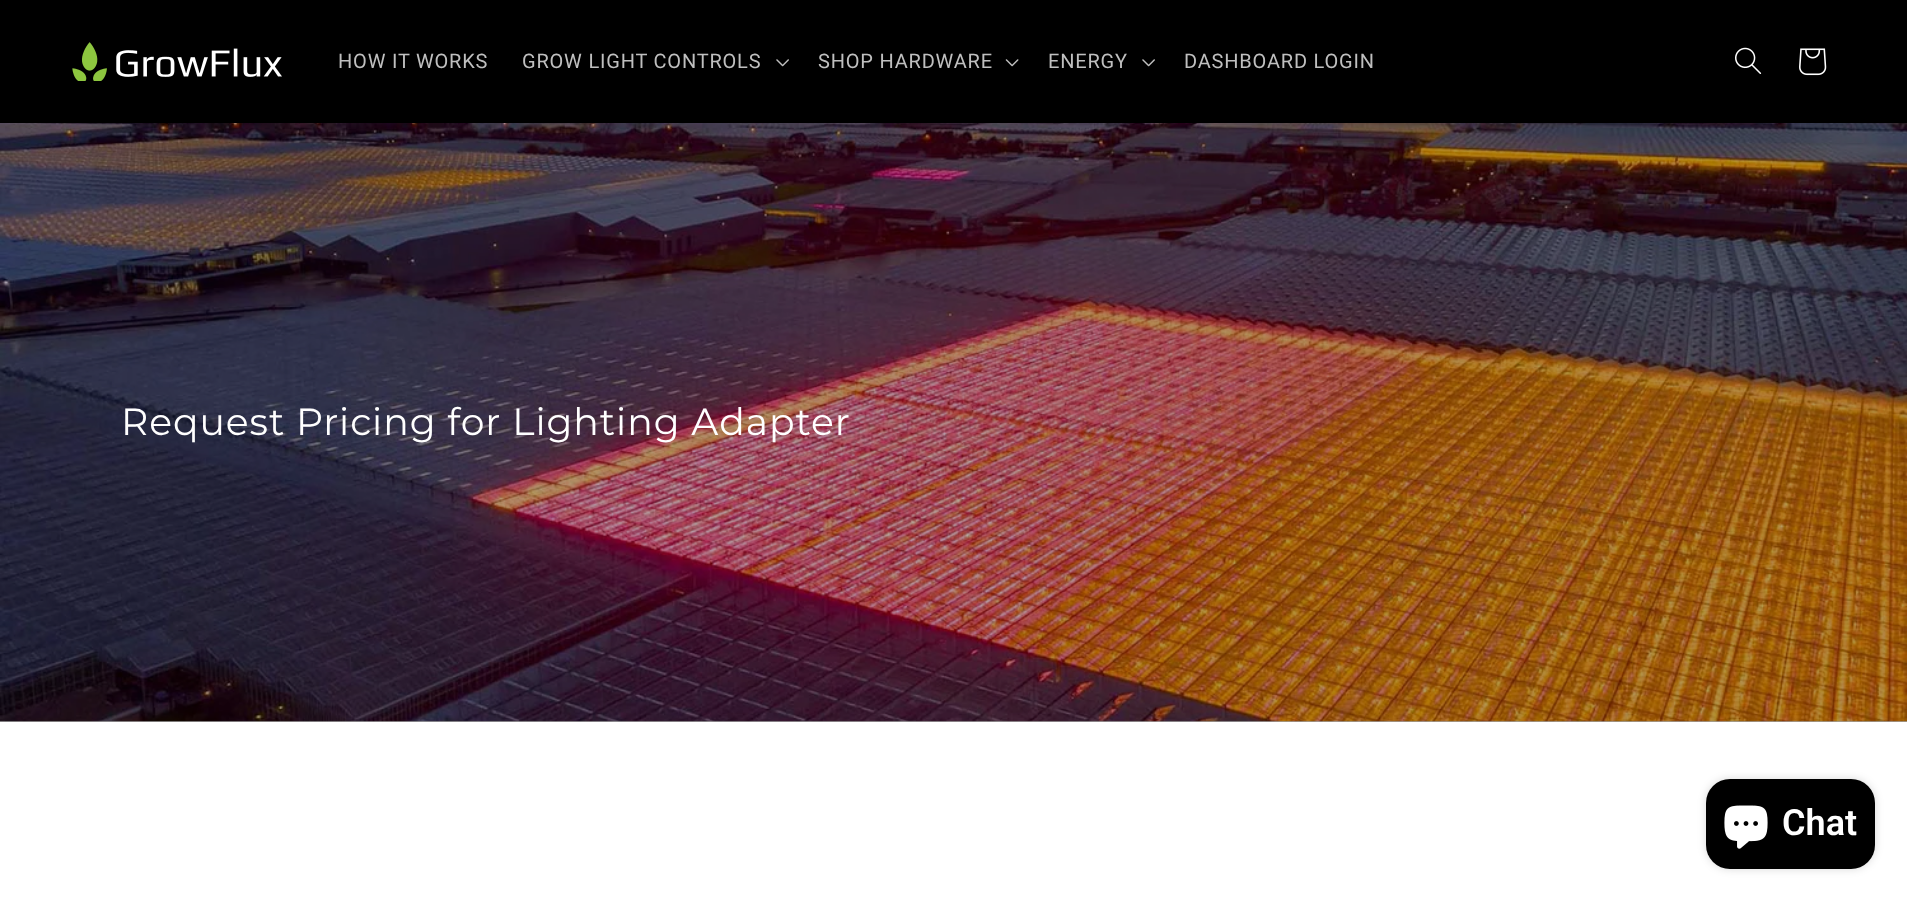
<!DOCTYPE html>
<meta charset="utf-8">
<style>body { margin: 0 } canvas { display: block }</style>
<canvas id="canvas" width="1907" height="900"></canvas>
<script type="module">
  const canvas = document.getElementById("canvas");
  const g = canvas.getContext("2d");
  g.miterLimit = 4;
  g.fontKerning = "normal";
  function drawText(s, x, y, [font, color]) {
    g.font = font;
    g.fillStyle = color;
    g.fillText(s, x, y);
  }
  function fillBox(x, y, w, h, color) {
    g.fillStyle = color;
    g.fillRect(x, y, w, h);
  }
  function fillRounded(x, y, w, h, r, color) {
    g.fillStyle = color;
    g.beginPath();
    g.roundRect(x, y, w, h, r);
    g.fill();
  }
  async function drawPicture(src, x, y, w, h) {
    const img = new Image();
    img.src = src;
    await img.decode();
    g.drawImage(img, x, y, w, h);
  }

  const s1 = ["20px Roboto", "#BFBFBF"];
  const s2 = ["37.75px Montserrat", "#FFFFFF"];
  const s3 = ["600 36px Roboto", "#FFFFFF"];

  fillBox(0, 0, 1907, 900, "#FFFFFF");
  fillBox(0, 0, 1907, 123, "#000000");
  await drawPicture("pic1.png", 72, 42, 210, 39);
  g.letterSpacing = "0.8px";
  drawText("HOW IT WORKS", 338, 68, s1);
  drawText("GROW LIGHT CONTROLS", 522, 68, s1);
  await drawPicture("pic2.png", 776, 59, 13, 8);
  drawText("SHOP HARDWARE", 818, 68, s1);
  await drawPicture("pic3.png", 1005, 59, 14, 8);
  drawText("ENERGY", 1048, 68, s1);
  await drawPicture("pic2.png", 1142, 59, 13, 8);
  drawText("DASHBOARD LOGIN", 1184, 68, s1);
  await drawPicture("pic4.png", 1735, 47, 27, 27);
  await drawPicture("pic5.png", 1799, 48, 28, 28);
  fillBox(0, 721, 1907, 1, "#A1A1A1");
  await drawPicture("pic6.png", 0, 123, 1907, 599);
  g.letterSpacing = "0.95px";
  drawText("Request Pricing for Lighting Adapter", 121, 435, s2);
  g.fillStyle = "rgba(0, 0, 0, 0.15)";
  g.filter = "blur(4px)";
  g.beginPath();
  g.roundRect(1706, 779, 169, 90, 24);
  g.fill();
  g.filter = "none";
  fillRounded(1706, 779, 169, 90, 24, "#000000");
  await drawPicture("pic7.png", 1724, 805, 44, 44);
  g.letterSpacing = "0px";
  drawText("Chat", 1782, 835, s3);
</script>
